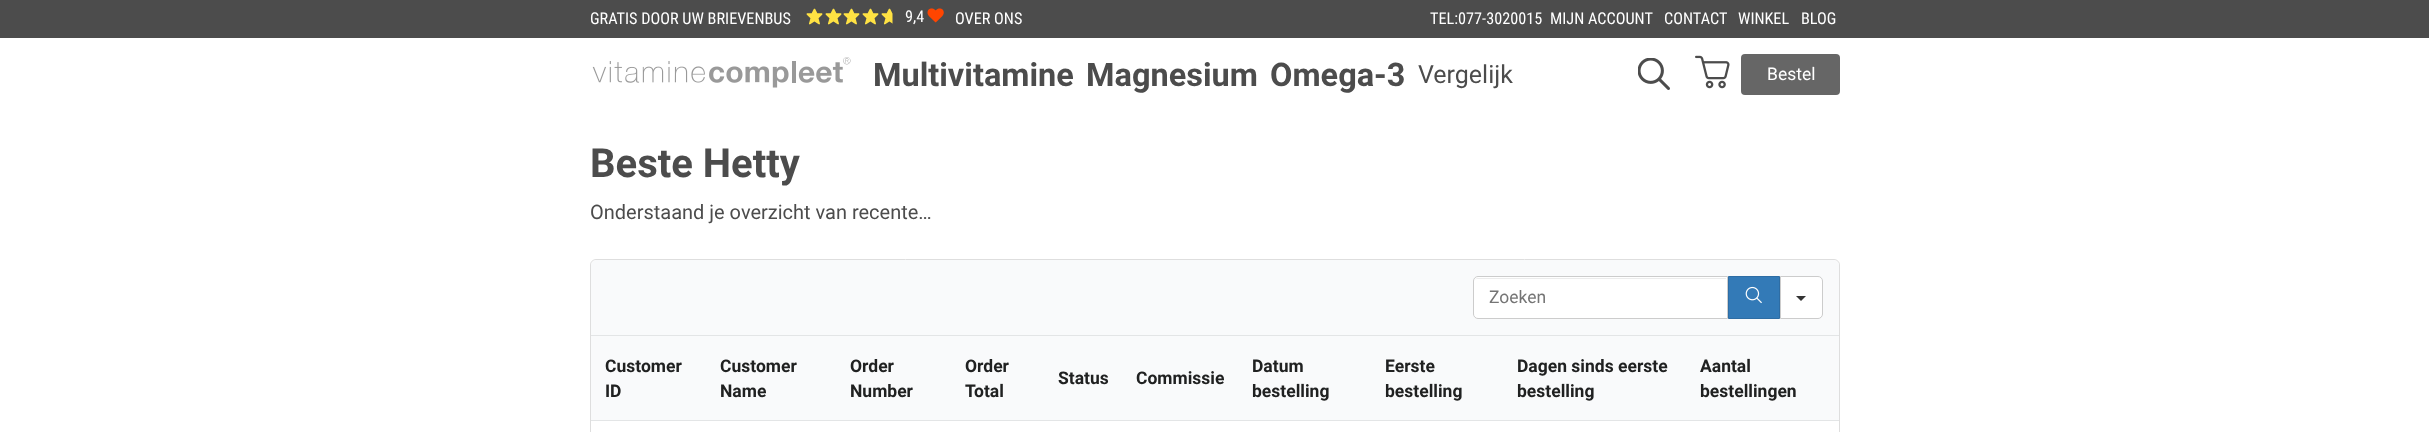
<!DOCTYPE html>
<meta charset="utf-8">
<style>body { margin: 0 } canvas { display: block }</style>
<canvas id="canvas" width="2429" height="432"></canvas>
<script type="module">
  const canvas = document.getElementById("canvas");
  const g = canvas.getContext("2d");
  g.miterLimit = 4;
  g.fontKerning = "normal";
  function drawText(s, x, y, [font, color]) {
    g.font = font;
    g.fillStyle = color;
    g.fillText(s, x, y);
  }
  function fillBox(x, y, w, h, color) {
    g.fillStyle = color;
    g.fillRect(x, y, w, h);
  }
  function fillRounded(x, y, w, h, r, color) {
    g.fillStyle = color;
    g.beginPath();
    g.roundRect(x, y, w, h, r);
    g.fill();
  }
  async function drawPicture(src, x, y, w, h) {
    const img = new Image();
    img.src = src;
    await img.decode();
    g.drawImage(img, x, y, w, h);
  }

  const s1 = ["16.25px Roboto Condensed", "#FFFFFF"];
  const s2 = ["bold 32.5px Roboto", "#4C4C4C"];
  const s3 = ["25px Roboto", "#4C4C4C"];
  const s4 = ["17.5px Roboto", "#FFFFFF"];
  const s5 = ["bold 40px Roboto", "#4C4C4C"];
  const s6 = ["20px Roboto", "#4C4C4C"];
  const s7 = ["17.5px Roboto", "#757575"];
  const s8 = ["bold 17.5px Roboto", "#202121"];

  fillBox(0, 0, 2429, 432, "#FFFFFF");
  fillBox(0, 0, 2429, 38, "#4C4C4C");
  drawText("GRATIS DOOR UW BRIEVENBUS", 590, 24, s1);
  await drawPicture("pic1.png", 806, 8, 87, 17);
  drawText("9,4", 905, 22, s1);
  await drawPicture("pic2.png", 927, 8, 17, 15);
  drawText("OVER ONS", 955, 24, s1);
  drawText("TEL:077-3020015", 1430, 24, s1);
  drawText("MIJN ACCOUNT", 1550, 24, s1);
  drawText("CONTACT", 1664, 24, s1);
  drawText("WINKEL", 1738, 24, s1);
  drawText("BLOG", 1801, 24, s1);
  await drawPicture("pic3.png", 592, 57, 259, 31);
  drawText("Multivitamine", 873, 86, s2);
  drawText("Magnesium", 1086, 86, s2);
  drawText("Omega-3", 1270, 86, s2);
  drawText("Vergelijk", 1418, 83, s3);
  await drawPicture("pic4.png", 1638, 58, 32, 32);
  await drawPicture("pic5.png", 1695, 55, 35, 34);
  fillRounded(1741, 54, 99, 41, 4, "#666666");
  drawText("Bestel", 1767, 80, s4);
  drawText("Beste Hetty", 590, 177, s5);
  drawText("Onderstaand je overzicht van recente…", 590, 219, s6);
  g.beginPath();
  g.roundRect(590.5, 259.5, 1249, 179, 5.5);
  g.strokeStyle = "#DEDEDE";
  g.stroke();
  g.fillStyle = "#F9FAFB";
  g.beginPath();
  g.roundRect(591, 260, 1248, 76, [6, 6, 0, 0]);
  g.fill();
  fillBox(591, 335, 1248, 1, "#E3E5E6");
  g.fillStyle = "#FFFFFF";
  g.beginPath();
  g.roundRect(1473, 276, 255, 43, [5, 0, 0, 5]);
  g.fill();
  g.fillStyle = "#ECECEC";
  g.beginPath();
  g.moveTo(1478, 279);
  g.lineTo(1726, 279);
  g.lineTo(1726, 278);
  g.lineTo(1478, 278);
  g.bezierCurveTo(1476, 278, 1475, 279, 1474, 280);
  g.bezierCurveTo(1475, 279, 1476, 279, 1478, 279);
  g.closePath();
  g.fill();
  g.beginPath();
  g.roundRect(1473.5, 276.5, 254, 42, [4.5, 0, 0, 4.5]);
  g.strokeStyle = "#CCCCCC";
  g.stroke();
  drawText("Zoeken", 1489, 303, s7);
  g.fillStyle = "#337AB7";
  g.beginPath();
  g.rect(1728.5, 276.5, 51, 42);
  g.fill();
  g.strokeStyle = "#2E6DA4";
  g.stroke();
  await drawPicture("pic6.png", 1745, 286, 17, 18);
  g.fillStyle = "#FFFFFF";
  g.beginPath();
  g.roundRect(1780.5, 276.5, 42, 42, [0, 4.5, 4.5, 0]);
  g.fill();
  g.strokeStyle = "#CCCCCC";
  g.stroke();
  g.fillStyle = "#333333";
  g.beginPath();
  g.moveTo(1796, 296);
  g.lineTo(1806, 296);
  g.lineTo(1801, 301);
  g.closePath();
  g.fill();
  fillBox(591, 336, 1248, 84, "#F9FAFB");
  fillBox(591, 420, 1248, 1, "#E3E5E6");
  drawText("Customer", 605, 372, s8);
  drawText("ID", 605, 397, s8);
  drawText("Customer", 720, 372, s8);
  drawText("Name", 720, 397, s8);
  drawText("Order", 850, 372, s8);
  drawText("Number", 850, 397, s8);
  drawText("Order", 965, 372, s8);
  drawText("Total", 965, 397, s8);
  drawText("Status", 1058, 384, s8);
  drawText("Commissie", 1136, 384, s8);
  drawText("Datum", 1252, 372, s8);
  drawText("bestelling", 1252, 397, s8);
  drawText("Eerste", 1385, 372, s8);
  drawText("bestelling", 1385, 397, s8);
  drawText("Dagen sinds eerste", 1517, 372, s8);
  drawText("bestelling", 1517, 397, s8);
  drawText("Aantal", 1700, 372, s8);
  drawText("bestellingen", 1700, 397, s8);
</script>
